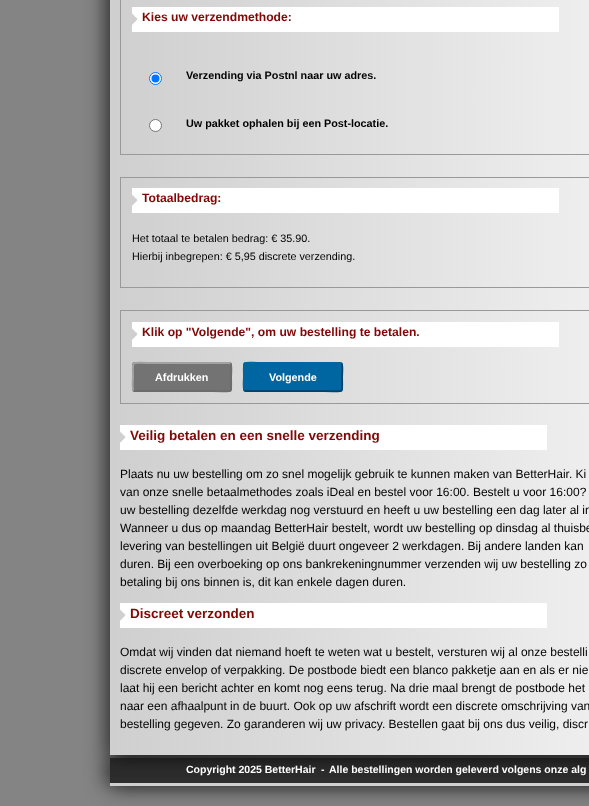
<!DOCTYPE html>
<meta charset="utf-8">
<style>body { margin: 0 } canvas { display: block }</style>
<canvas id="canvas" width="589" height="806"></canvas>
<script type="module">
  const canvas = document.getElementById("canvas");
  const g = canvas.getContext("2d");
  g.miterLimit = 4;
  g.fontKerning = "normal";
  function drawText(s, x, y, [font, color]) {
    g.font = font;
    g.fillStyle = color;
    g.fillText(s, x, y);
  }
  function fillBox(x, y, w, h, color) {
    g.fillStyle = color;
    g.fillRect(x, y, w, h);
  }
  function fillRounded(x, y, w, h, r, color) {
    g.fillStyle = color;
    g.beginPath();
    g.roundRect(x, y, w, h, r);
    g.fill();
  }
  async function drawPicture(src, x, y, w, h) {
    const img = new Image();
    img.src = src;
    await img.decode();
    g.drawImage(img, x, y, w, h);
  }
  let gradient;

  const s1 = ["bold 12.15px Liberation Sans", "#820807"];
  const s2 = ["bold 10.8px Liberation Sans", "#000000"];
  const s3 = ["10.8px Liberation Sans", "#000000"];
  const s4 = ["bold 10.8px Liberation Sans", "#FFFFFF"];
  const s5 = ["bold 13.5px Liberation Sans", "#820807"];
  const s6 = ["12px Liberation Sans", "#000000"];
  const s7 = ["bold 10.5px Liberation Sans", "#FFFFFF"];

  fillBox(0, 0, 589, 806, "#848484");
  g.fillStyle = "rgba(0, 0, 0, 0.5)";
  g.filter = "blur(10px)";
  g.beginPath();
  g.rect(105, 758, 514, 28);
  g.fill();
  g.filter = "none";
  g.filter = "blur(10px)";
  g.beginPath();
  g.rect(115, 758, 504, 28);
  g.fill();
  g.filter = "none";
  fillBox(110, 758, 479, 25, "#2D2D2D");
  fillBox(110, 783, 479, 3, "#CFCFCF");
  g.fillStyle = "rgba(0, 0, 0, 0.5)";
  g.filter = "blur(10px)";
  g.beginPath();
  g.rect(105, -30, 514, 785);
  g.fill();
  g.filter = "none";
  g.filter = "blur(10px)";
  g.beginPath();
  g.rect(115, -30, 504, 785);
  g.fill();
  g.filter = "none";
  gradient = g.createLinearGradient(110, -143, 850, -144);
  gradient.addColorStop(0, "#CFCFCF");
  gradient.addColorStop(1, "#FFFFFF");
  g.fillStyle = gradient;
  g.fillRect(110, 0, 479, 755);
  g.strokeStyle = "#999999";
  g.strokeRect(120.5, -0.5, 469, 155);
  await drawPicture("pic1.png", 132, 7, 427, 25);
  drawText("Kies uw verzendmethode:", 142, 21, s1);
  g.fillStyle = "#FFFFFF";
  g.beginPath();
  g.arc(155.5, 78.5, 6, 0, Math.PI * 2);
  g.fill();
  g.strokeStyle = "#0075FF";
  g.stroke();
  g.fillStyle = "#0075FF";
  g.beginPath();
  g.arc(155.5, 78.5, 4, 0, Math.PI * 2);
  g.fill();
  drawText("Verzending via Postnl naar uw adres.", 186, 79, s2);
  g.fillStyle = "#FFFFFF";
  g.beginPath();
  g.arc(155.5, 125.5, 6, 0, Math.PI * 2);
  g.fill();
  g.strokeStyle = "#767676";
  g.stroke();
  drawText("Uw pakket ophalen bij een Post-locatie.", 186, 127, s2);
  g.strokeStyle = "#999999";
  g.strokeRect(120.5, 177.5, 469, 110);
  await drawPicture("pic1.png", 132, 188, 427, 25);
  drawText("Totaalbedrag:", 142, 202, s1);
  drawText("Het totaal te betalen bedrag: € 35.90.", 132, 242, s3);
  drawText("Hierbij inbegrepen: € 5,95 discrete verzending.", 132, 260, s3);
  g.strokeRect(120.5, 310.5, 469, 93);
  await drawPicture("pic1.png", 132, 322, 427, 25);
  drawText("Klik op \"Volgende\", om uw bestelling te betalen.", 142, 336, s1);
  fillRounded(132, 362, 100, 30, 3, "#737373");
  g.beginPath();
  g.moveTo(230.5, 363.5);
  g.bezierCurveTo(232, 365.5, 231, 374.5, 231, 377);
  g.bezierCurveTo(231, 395, 234, 391, 213, 391);
  g.lineTo(135, 391);
  g.lineTo(133.5, 390.5);
  g.strokeStyle = "#6C6C6C";
  g.lineWidth = 2;
  g.stroke();
  g.beginPath();
  g.moveTo(133.5, 390.5);
  g.bezierCurveTo(132, 388.5, 133, 379.5, 133, 377);
  g.bezierCurveTo(133, 359, 130, 363, 151, 363);
  g.lineTo(229, 363);
  g.lineTo(230.5, 363.5);
  g.strokeStyle = "#A2A2A2";
  g.stroke();
  drawText("Afdrukken", 155, 381, s4);
  fillRounded(243, 362, 100, 30, 3, "#0066A2");
  g.beginPath();
  g.moveTo(341.5, 363.5);
  g.bezierCurveTo(343, 365.5, 342, 374.5, 342, 377);
  g.bezierCurveTo(342, 395, 345, 391, 324, 391);
  g.lineTo(246, 391);
  g.lineTo(244.5, 390.5);
  g.strokeStyle = "#00446C";
  g.stroke();
  g.beginPath();
  g.moveTo(244.5, 390.5);
  g.bezierCurveTo(243, 388.5, 244, 379.5, 244, 377);
  g.bezierCurveTo(244, 359, 241, 363, 262, 363);
  g.lineTo(340, 363);
  g.lineTo(341.5, 363.5);
  g.strokeStyle = "#0066A2";
  g.stroke();
  drawText("Volgende", 269, 381, s4);
  await drawPicture("pic1.png", 120, 425, 427, 25);
  drawText("Veilig betalen en een snelle verzending", 130, 440, s5);
  drawText("Plaats nu uw bestelling om zo snel mogelijk gebruik te kunnen maken van BetterHair. Ki", 120, 478, s6);
  drawText("van onze snelle betaalmethodes zoals iDeal en bestel voor 16:00. Bestelt u voor 16:00?", 120, 496, s6);
  drawText("uw bestelling dezelfde werkdag nog verstuurd en heeft u uw bestelling een dag later al in", 120, 514, s6);
  drawText("Wanneer u dus op maandag BetterHair bestelt, wordt uw bestelling op dinsdag al thuisbe", 120, 532, s6);
  drawText("levering van bestellingen uit België duurt ongeveer 2 werkdagen. Bij andere landen kan", 120, 550, s6);
  drawText("duren. Bij een overboeking op ons bankrekeningnummer verzenden wij uw bestelling zo", 120, 568, s6);
  drawText("betaling bij ons binnen is, dit kan enkele dagen duren.", 120, 586, s6);
  await drawPicture("pic1.png", 120, 603, 427, 25);
  drawText("Discreet verzonden", 130, 618, s5);
  drawText("Omdat wij vinden dat niemand hoeft te weten wat u bestelt, versturen wij al onze bestelli", 120, 656, s6);
  drawText("discrete envelop of verpakking. De postbode biedt een blanco pakketje aan en als er nie", 120, 674, s6);
  drawText("laat hij een bericht achter en komt nog eens terug. Na drie maal brengt de postbode het", 120, 692, s6);
  drawText("naar een afhaalpunt in de buurt. Ook op uw afschrift wordt een discrete omschrijving van", 120, 710, s6);
  drawText("bestelling gegeven. Zo garanderen wij uw privacy. Bestellen gaat bij ons dus veilig, discr", 120, 728, s6);
  drawText("Copyright 2025 BetterHair", 186, 773, s7);
  drawText("-", 321, 773, s7);
  drawText("Alle bestellingen worden geleverd volgens onze alg", 329, 773, s7);
</script>
